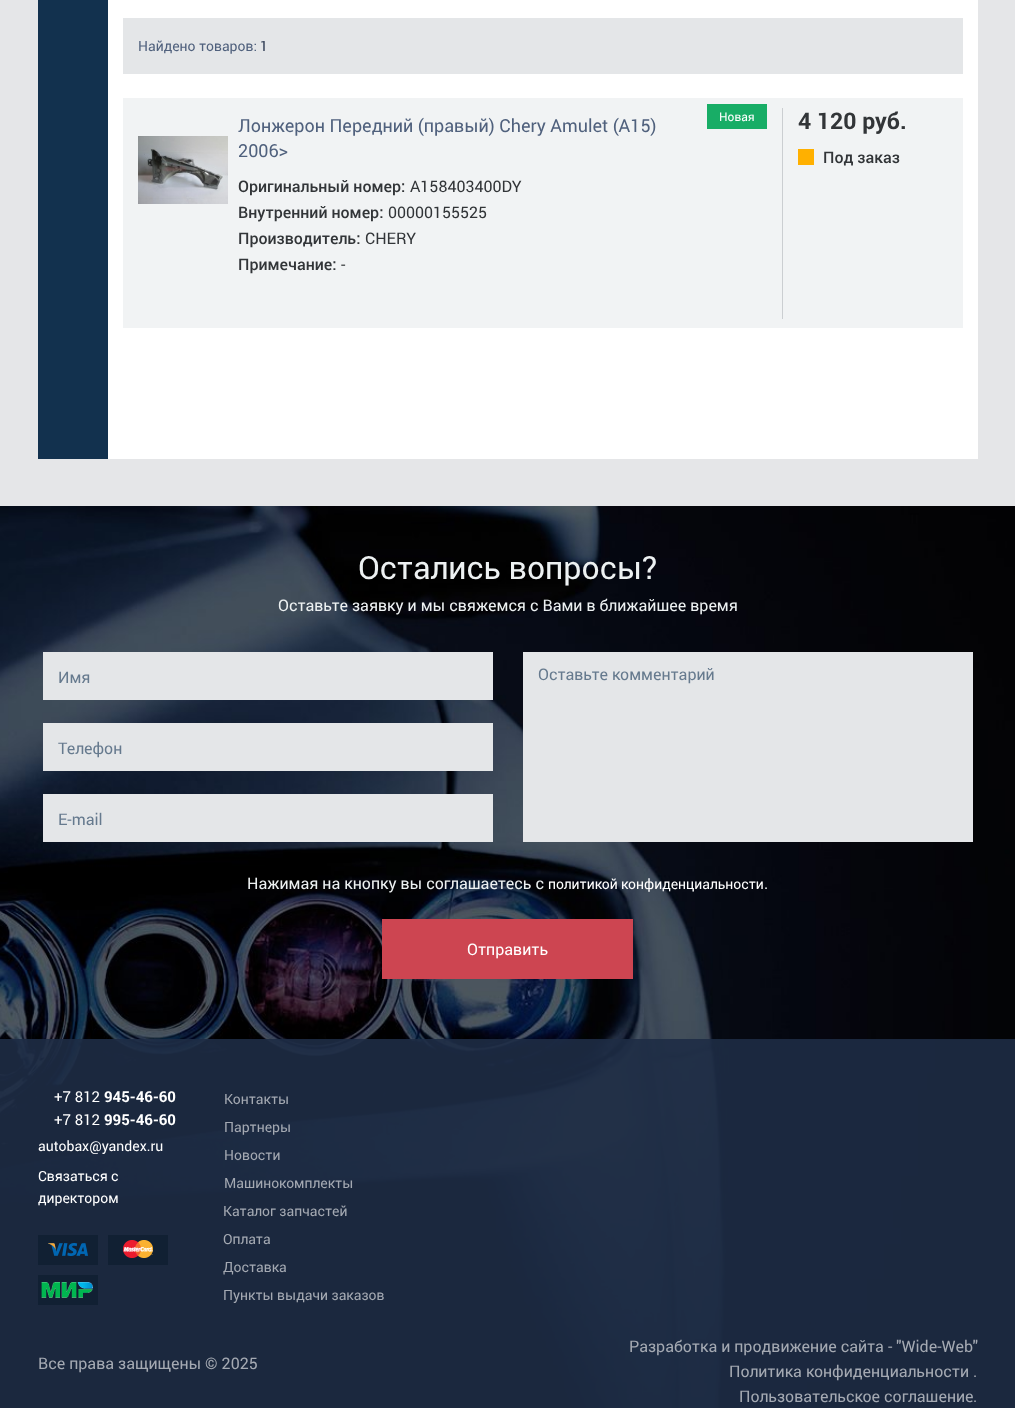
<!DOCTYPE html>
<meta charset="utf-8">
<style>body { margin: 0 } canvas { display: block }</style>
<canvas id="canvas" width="1015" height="1409"></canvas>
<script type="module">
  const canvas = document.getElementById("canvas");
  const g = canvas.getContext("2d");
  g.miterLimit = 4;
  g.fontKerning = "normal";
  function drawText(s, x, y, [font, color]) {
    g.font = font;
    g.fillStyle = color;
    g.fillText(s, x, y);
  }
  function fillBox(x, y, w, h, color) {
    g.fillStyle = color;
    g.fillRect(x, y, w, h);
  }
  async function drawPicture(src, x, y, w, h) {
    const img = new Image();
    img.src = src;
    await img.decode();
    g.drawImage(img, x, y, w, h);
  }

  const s1 = ["14px Roboto", "#50617D"];
  const s2 = ["14px Roboto", "#1E2C45"];
  const s3 = ["18px Roboto", "#50617D"];
  const s4 = ["500 16px Roboto", "#323538"];
  const s5 = ["16px Roboto", "#323538"];
  const s6 = ["12px Roboto", "#FFFFFF"];
  const s7 = ["bold 23px Roboto", "#323538"];
  const s8 = ["32px Roboto", "#EDF1F2"];
  const s9 = ["16px Roboto", "#EDF1F2"];
  const s10 = ["16px Roboto", "#667A8E"];
  const s11 = ["14px Roboto", "#FFFFFF"];
  const s12 = ["16px Roboto", "#FFFFFF"];
  const s13 = ["15px Roboto", "#FFFFFF"];
  const s14 = ["bold 15px Roboto", "#FFFFFF"];
  const s15 = ["14px Roboto", "#A4A9B2"];
  const s16 = ["16px Roboto", "#A4A9B2"];

  fillBox(0, 0, 1015, 1409, "#FFFFFF");
  fillBox(0, 0, 1015, 506, "#E5E6E8");
  fillBox(108, 0, 870, 459, "#FFFFFF");
  fillBox(38, 0, 70, 459, "#12314E");
  fillBox(123, 18, 840, 56, "#E4E6E8");
  drawText("Найдено товаров:", 138, 51, s1);
  drawText("1", 260, 51, s2);
  fillBox(123, 98, 840, 230, "#F1F3F4");
  fillBox(782, 108, 1, 211, "#CBCED1");
  await drawPicture("pic1.png", 138, 136, 90, 68);
  drawText("Лонжерон Передний (правый) Chery Amulet (A15)", 238, 132, s3);
  drawText("2006>", 238, 157, s3);
  drawText("Оригинальный номер:", 238, 192, s4);
  drawText("A158403400DY", 410, 192, s5);
  drawText("Внутренний номер:", 238, 218, s4);
  drawText("00000155525", 388, 218, s5);
  drawText("Производитель:", 238, 244, s4);
  drawText("CHERY", 365, 244, s5);
  drawText("Примечание:", 238, 270, s4);
  drawText("-", 341, 270, s5);
  fillBox(707, 104, 60, 25, "#18AD66");
  drawText("Новая", 719, 121, s6);
  drawText("4 120 руб.", 798, 129, s7);
  fillBox(798, 149, 16, 16, "#FFB000");
  drawText("Под заказ", 823, 163, s4);
  await drawPicture("pic2.png", 0, 506, 1015, 902);
  drawText("Остались вопросы?", 358, 579, s8);
  drawText("Оставьте заявку и мы свяжемся с Вами в ближайшее время", 278, 611, s9);
  fillBox(43, 652, 450, 48, "#E4E6E8");
  drawText("Имя", 58, 683, s10);
  fillBox(43, 723, 450, 48, "#E4E6E8");
  drawText("Телефон", 58, 754, s10);
  fillBox(43, 794, 450, 48, "#E4E6E8");
  drawText("E-mail", 58, 825, s10);
  fillBox(523, 652, 450, 190, "#E4E6E8");
  drawText("Оставьте комментарий", 538, 680, s10);
  drawText("Нажимая на кнопку вы соглашаетесь с", 247, 889, s9);
  drawText("политикой конфиденциальности", 548, 889, s11);
  drawText(".", 764, 889, s9);
  fillBox(382, 919, 251, 60, "#CD4551");
  drawText("Отправить", 467, 955, s12);
  fillBox(0, 1039, 1015, 369, "rgba(30, 44, 69, 0.9)");
  drawText("+7 812", 54, 1102, s13);
  drawText("945-46-60", 104, 1102, s14);
  drawText("+7 812", 54, 1125, s13);
  drawText("995-46-60", 104, 1125, s14);
  drawText("autobax@yandex.ru", 38, 1151, s11);
  drawText("Связаться с", 38, 1181, s11);
  drawText("директором", 38, 1203, s11);
  fillBox(38, 1235, 60, 30, "#112033");
  await drawPicture("pic3.png", 48, 1243, 40, 13);
  fillBox(108, 1235, 60, 30, "#112033");
  await drawPicture("pic4.png", 123, 1240, 30, 18);
  fillBox(38, 1275, 60, 30, "#112033");
  await drawPicture("pic5.png", 41, 1282, 52, 16);
  drawText("Контакты", 224, 1104, s15);
  drawText("Партнеры", 224, 1132, s15);
  drawText("Новости", 224, 1160, s15);
  drawText("Машинокомплекты", 224, 1188, s15);
  drawText("Каталог запчастей", 223, 1216, s15);
  drawText("Оплата", 223, 1244, s15);
  drawText("Доставка", 223, 1272, s15);
  drawText("Пункты выдачи заказов", 223, 1300, s15);
  drawText("Все права защищены © 2025", 38, 1369, s16);
  drawText("Разработка и продвижение сайта - \"Wide-Web\"", 629, 1352, s16);
  drawText("Политика конфиденциальности", 729, 1377, s16);
  drawText(".", 973, 1377, s16);
  drawText("Пользовательское соглашение", 739, 1402, s16);
  drawText(".", 973, 1402, s16);
</script>
